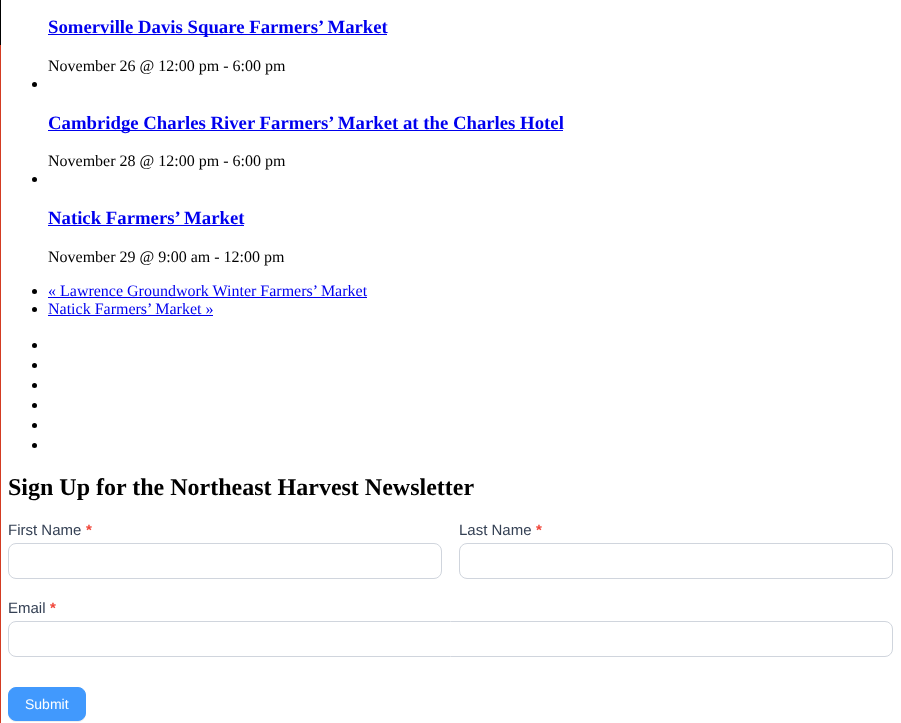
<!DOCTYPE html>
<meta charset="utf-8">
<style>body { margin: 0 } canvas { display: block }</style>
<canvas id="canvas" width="901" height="723"></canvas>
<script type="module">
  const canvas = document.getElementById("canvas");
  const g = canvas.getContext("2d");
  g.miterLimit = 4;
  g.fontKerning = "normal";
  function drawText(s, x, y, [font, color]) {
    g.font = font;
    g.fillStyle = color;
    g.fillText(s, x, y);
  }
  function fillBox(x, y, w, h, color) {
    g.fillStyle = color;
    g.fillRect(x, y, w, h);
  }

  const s1 = ["bold 18.75px Liberation Serif", "#0000EE"];
  const s2 = ["16px Liberation Serif", "#000000"];
  const s3 = ["16px Liberation Serif", "#0000EE"];
  const s4 = ["bold 24px Liberation Serif", "#000000"];
  const s5 = ["15px Liberation Sans", "#344054"];
  const s6 = ["bold 15px Liberation Sans", "#F04438"];
  const s7 = ["14px Liberation Sans", "#FFFFFF"];

  fillBox(0, 0, 901, 723, "#FFFFFF");
  fillBox(0, 45, 1, 678, "#D33B22");
  fillBox(0, 0, 1, 45, "#000000");
  fillBox(48, 34, 339, 1, "#0000EE");
  drawText("Somerville Davis Square Farmers’ Market", 48, 33, s1);
  drawText("November 26 @ 12:00 pm - 6:00 pm", 48, 71, s2);
  g.beginPath();
  g.arc(34.5, 84.5, 2.5, 0, Math.PI * 2);
  g.fill();
  fillBox(48, 130, 515, 1, "#0000EE");
  drawText("Cambridge Charles River Farmers’ Market at the Charles Hotel", 48, 129, s1);
  drawText("November 28 @ 12:00 pm - 6:00 pm", 48, 166, s2);
  g.beginPath();
  g.arc(34.5, 179.5, 2.5, 0, Math.PI * 2);
  g.fill();
  drawText("Natick Farmers’ Market", 48, 224, s1);
  fillBox(48, 225, 196, 1, "#0000EE");
  drawText("November 29 @ 9:00 am - 12:00 pm", 48, 262, s2);
  g.beginPath();
  g.arc(34.5, 291.5, 2.5, 0, Math.PI * 2);
  g.fill();
  drawText("« Lawrence Groundwork Winter Farmers’ Market", 48, 296, s3);
  fillBox(48, 297, 319, 1, "#0000EE");
  g.fillStyle = "#000000";
  g.beginPath();
  g.arc(34.5, 309.5, 2.5, 0, Math.PI * 2);
  g.fill();
  drawText("Natick Farmers’ Market »", 48, 314, s3);
  fillBox(48, 315, 165, 1, "#0000EE");
  g.fillStyle = "#000000";
  g.beginPath();
  g.arc(34.5, 345.5, 2.5, 0, Math.PI * 2);
  g.fill();
  g.beginPath();
  g.arc(34.5, 365.5, 2.5, 0, Math.PI * 2);
  g.fill();
  g.beginPath();
  g.arc(34.5, 385.5, 2.5, 0, Math.PI * 2);
  g.fill();
  g.beginPath();
  g.arc(34.5, 405.5, 2.5, 0, Math.PI * 2);
  g.fill();
  g.beginPath();
  g.arc(34.5, 425.5, 2.5, 0, Math.PI * 2);
  g.fill();
  g.beginPath();
  g.arc(34.5, 445.5, 2.5, 0, Math.PI * 2);
  g.fill();
  drawText("Sign Up for the Northeast Harvest Newsletter", 8, 495, s4);
  drawText("First Name", 8, 535, s5);
  drawText("*", 86, 535, s6);
  g.beginPath();
  g.roundRect(8.5, 543.5, 433, 35, 7.5);
  g.strokeStyle = "#D0D5DD";
  g.stroke();
  drawText("Last Name", 459, 535, s5);
  drawText("*", 536, 535, s6);
  g.beginPath();
  g.roundRect(459.5, 543.5, 433, 35, 7.5);
  g.stroke();
  drawText("Email", 8, 613, s5);
  drawText("*", 50, 613, s6);
  g.beginPath();
  g.roundRect(8.5, 621.5, 884, 35, 7.5);
  g.stroke();
  g.fillStyle = "#EEEEEE";
  g.filter = "blur(0.5px)";
  g.beginPath();
  g.roundRect(8, 688, 78, 34, 8);
  g.fill();
  g.filter = "none";
  g.fillStyle = "#4199FD";
  g.beginPath();
  g.roundRect(8.5, 687.5, 77, 33, 7.5);
  g.fill();
  g.strokeStyle = "#4199FD";
  g.stroke();
  drawText("Submit", 25, 709, s7);
</script>
